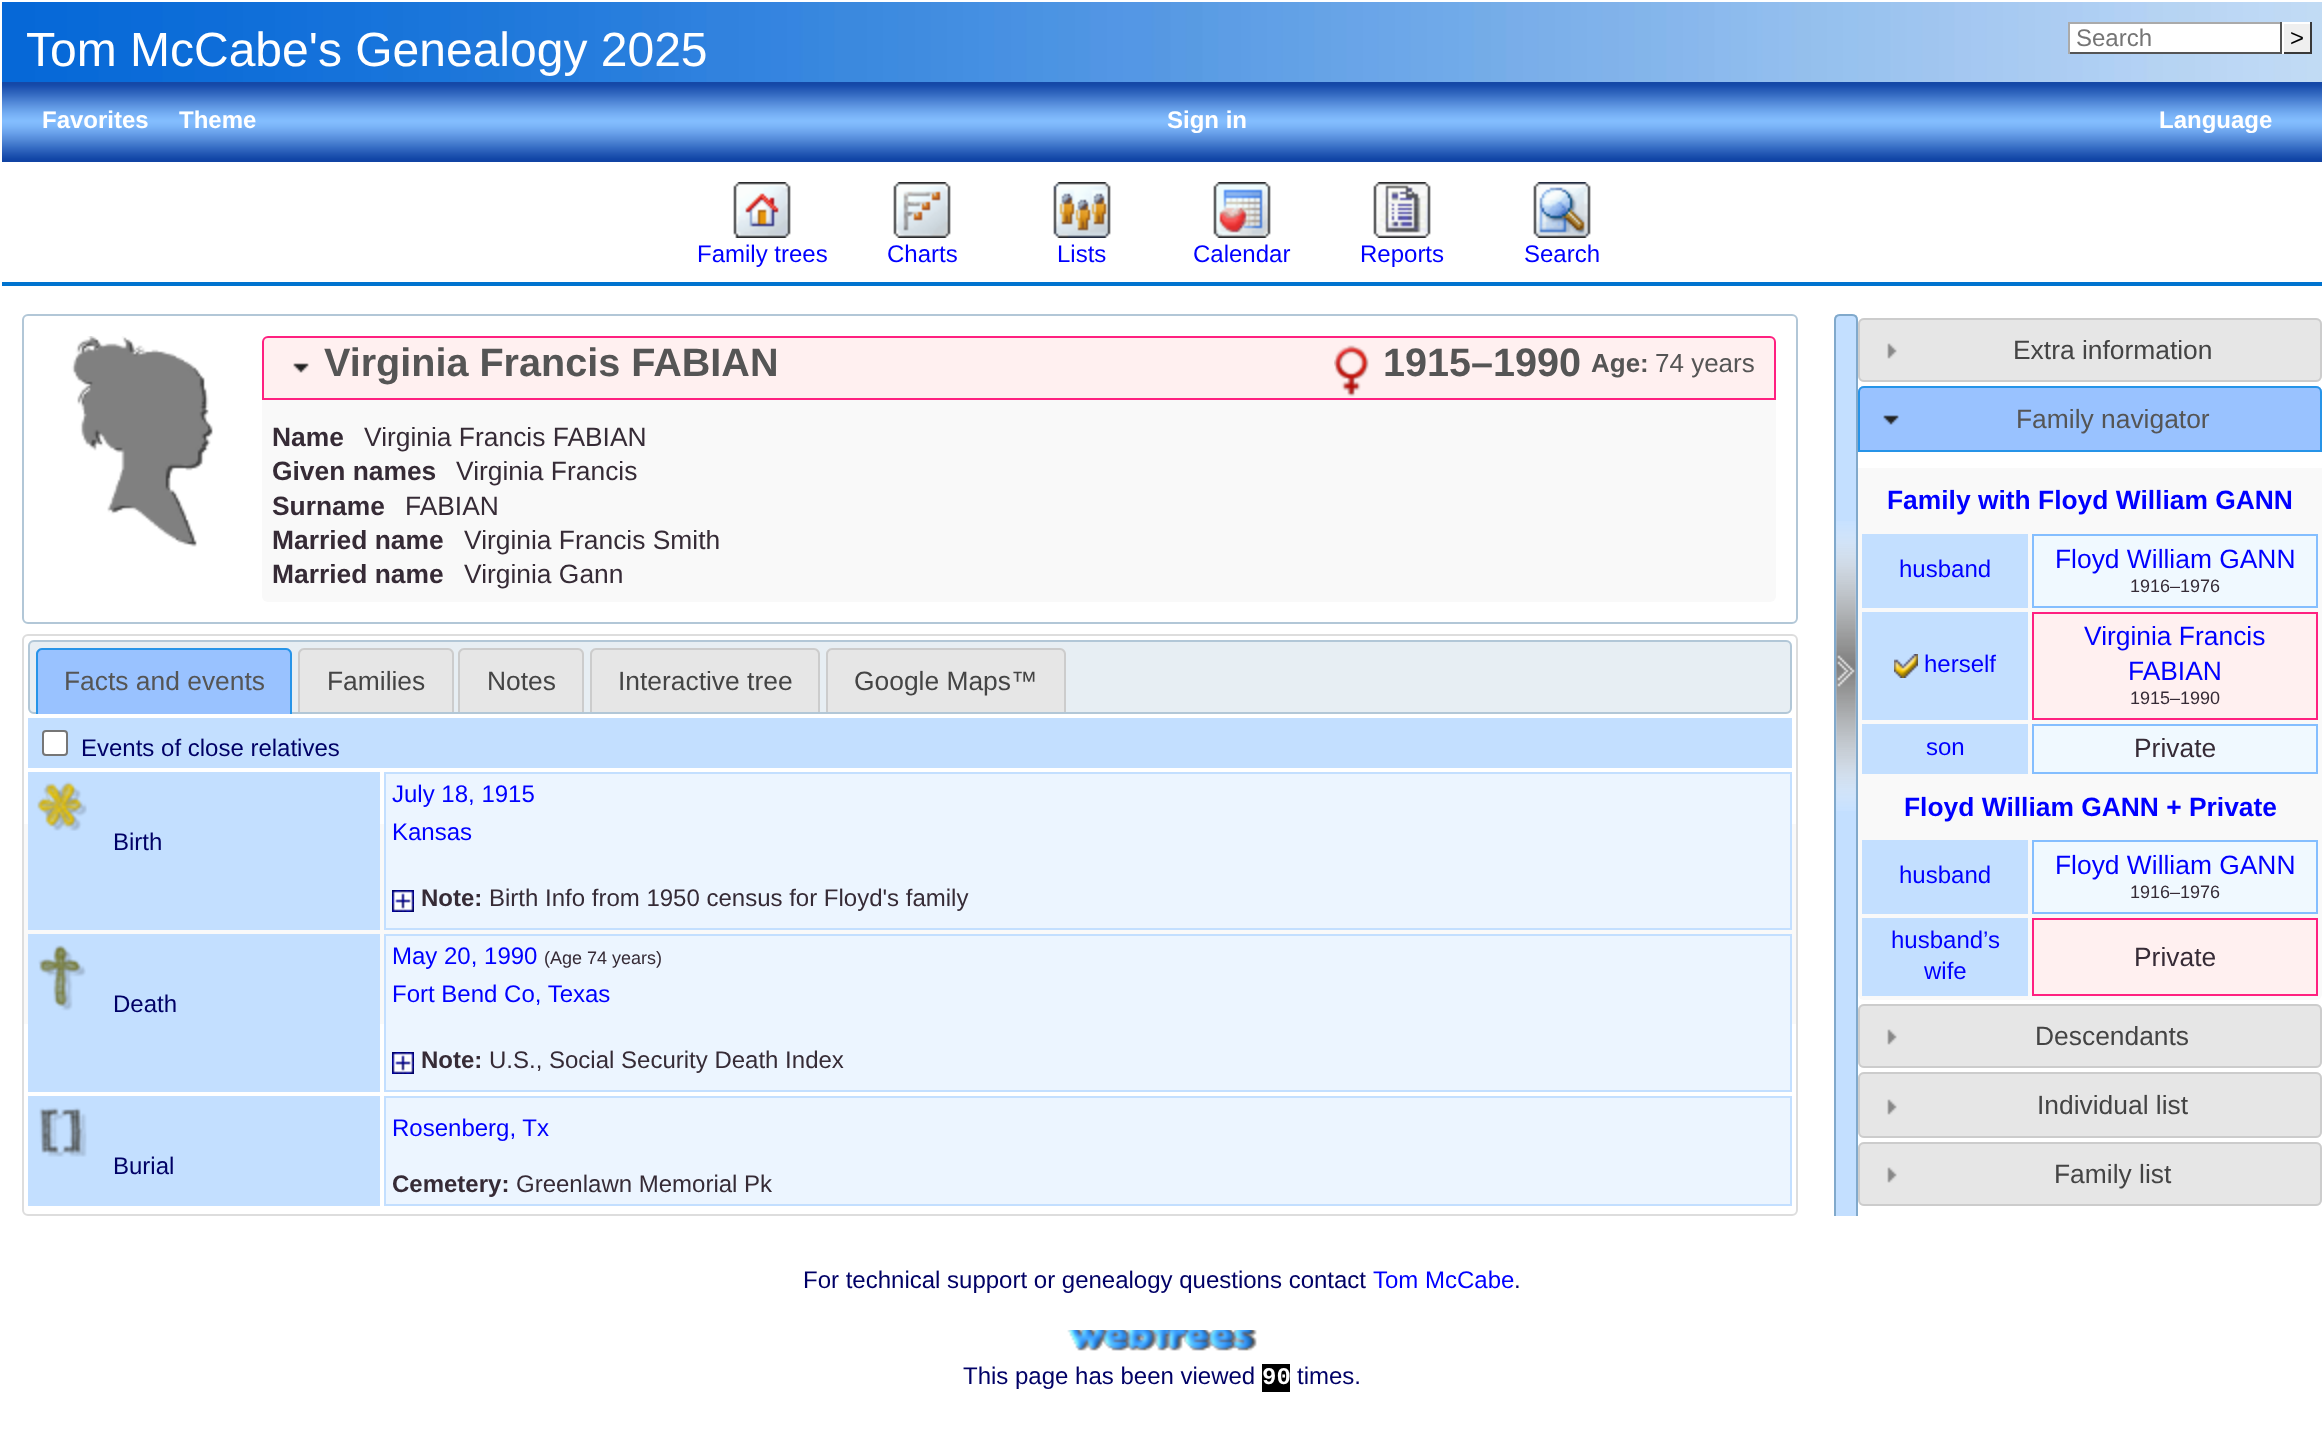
<!DOCTYPE html>
<meta charset="utf-8">
<style>body { margin: 0 } canvas { display: block }</style>
<canvas id="canvas" width="2323" height="1454"></canvas>
<script type="module">
  const canvas = document.getElementById("canvas");
  const g = canvas.getContext("2d");
  g.miterLimit = 4;
  g.fontKerning = "normal";
  function drawText(s, x, y, [font, color]) {
    g.font = font;
    g.fillStyle = color;
    g.fillText(s, x, y);
  }
  function fillBox(x, y, w, h, color) {
    g.fillStyle = color;
    g.fillRect(x, y, w, h);
  }
  async function drawPicture(src, x, y, w, h) {
    const img = new Image();
    img.src = src;
    await img.decode();
    g.drawImage(img, x, y, w, h);
  }

  const s1 = ["48px Liberation Sans", "#FFFFFF"];
  const s2 = ["24px Liberation Sans", "#757575"];
  const s3 = ["24px Liberation Sans", "#000000"];
  const s4 = ["bold 24px Liberation Sans", "#FFFFFF"];
  const s5 = ["24px Liberation Sans", "#0000FF"];
  const s6 = ["bold 39.6px Liberation Sans", "#555555"];
  const s7 = ["bold 26px Liberation Sans", "#555555"];
  const s8 = ["26px Liberation Sans", "#555555"];
  const s9 = ["bold 26.4px Liberation Sans", "#362B36"];
  const s10 = ["26.4px Liberation Sans", "#362B36"];
  const s11 = ["26.4px Liberation Sans", "#555555"];
  const s12 = ["26.4px Liberation Sans", "#444444"];
  const s13 = ["24px Liberation Sans", "#000066"];
  const s14 = ["bold 24px Liberation Sans", "#362B36"];
  const s15 = ["24px Liberation Sans", "#362B36"];
  const s16 = ["18px Liberation Sans", "#362B36"];
  const s17 = ["bold 26.4px Liberation Sans", "#0000FF"];
  const s18 = ["26.4px Liberation Sans", "#0000FF"];
  const s19 = ["bold 24px Liberation Mono", "#FFFFFF"];

  fillBox(0, 0, 2323, 1454, "#FFFFFF");
  await drawPicture("pic1.png", 2, 2, 2320, 80);
  drawText("Tom McCabe's Genealogy 2025", 26, 66, s1);
  fillBox(2070, 24, 210, 28, "#FFFFFF");
  fillBox(2068, 22, 214, 2, "#AAAAAA");
  fillBox(2280, 22, 2, 32, "#555555");
  fillBox(2068, 52, 214, 2, "#555555");
  fillBox(2068, 22, 2, 32, "#AAAAAA");
  drawText("Search", 2076, 46, s2);
  fillBox(2284, 24, 26, 28, "#EFEFEF");
  fillBox(2282, 22, 30, 2, "#FFFFFF");
  fillBox(2310, 22, 2, 32, "#393939");
  fillBox(2282, 52, 30, 2, "#393939");
  fillBox(2282, 22, 2, 32, "#FFFFFF");
  drawText(">", 2290, 46, s3);
  await drawPicture("pic2.png", 2, 82, 2320, 80);
  drawText("Favorites", 42, 128, s4);
  drawText("Theme", 179, 128, s4);
  drawText("Sign in", 1167, 128, s4);
  drawText("Language", 2159, 128, s4);
  fillBox(2, 282, 2320, 4, "#0073CF");
  await drawPicture("pic3.png", 733, 182, 58, 56);
  drawText("Family trees", 697, 262, s5);
  await drawPicture("pic4.png", 893, 182, 58, 56);
  drawText("Charts", 887, 262, s5);
  await drawPicture("pic5.png", 1053, 182, 58, 56);
  drawText("Lists", 1057, 262, s5);
  await drawPicture("pic6.png", 1213, 182, 58, 56);
  drawText("Calendar", 1193, 262, s5);
  await drawPicture("pic7.png", 1373, 182, 58, 56);
  drawText("Reports", 1360, 262, s5);
  await drawPicture("pic8.png", 1533, 182, 58, 56);
  drawText("Search", 1524, 262, s5);
  g.beginPath();
  g.roundRect(23, 315, 1774, 308, 5);
  g.strokeStyle = "#B2C7D7";
  g.lineWidth = 2;
  g.stroke();
  await drawPicture("pic9.png", 71, 336, 142, 211);
  g.fillStyle = "#FFF0F0";
  g.beginPath();
  g.roundRect(263, 337, 1512, 62, [5, 5, 0, 0]);
  g.fill();
  g.strokeStyle = "#FF2080";
  g.stroke();
  await drawPicture("pic10.png", 293, 363, 16, 10);
  drawText("Virginia Francis FABIAN", 324, 376, s6);
  await drawPicture("pic11.png", 1334, 345, 35, 52);
  drawText("1915–1990", 1383, 376, s6);
  drawText("Age:", 1591, 372, s7);
  drawText("74 years", 1655, 372, s8);
  g.fillStyle = "#F9F9F9";
  g.beginPath();
  g.roundRect(262, 400, 1514, 202, [0, 0, 6, 6]);
  g.fill();
  drawText("Name", 272, 446, s9);
  drawText("Virginia Francis FABIAN", 364, 446, s10);
  drawText("Given names", 272, 480, s9);
  drawText("Virginia Francis", 456, 480, s10);
  drawText("Surname", 272, 515, s9);
  drawText("FABIAN", 405, 515, s10);
  drawText("Married name", 272, 549, s9);
  drawText("Virginia Francis Smith", 464, 549, s10);
  drawText("Married name", 272, 583, s9);
  drawText("Virginia Gann", 464, 583, s10);
  fillBox(24, 824, 1772, 200, "#F9F9F9");
  g.beginPath();
  g.roundRect(23, 635, 1774, 580, 5);
  g.strokeStyle = "#DDDDDD";
  g.stroke();
  await drawPicture("pic12.png", 28, 640, 1764, 74);
  g.beginPath();
  g.roundRect(29, 641, 1762, 72, 5);
  g.strokeStyle = "#B2C7D7";
  g.stroke();
  await drawPicture("pic13.png", 36, 648, 256, 66);
  g.fillStyle = "#2694E8";
  g.beginPath();
  g.moveTo(42, 648);
  g.lineTo(286, 648);
  g.bezierCurveTo(289, 648, 292, 651, 292, 654);
  g.lineTo(292, 714);
  g.lineTo(36, 714);
  g.lineTo(36, 654);
  g.bezierCurveTo(36, 651, 39, 648, 42, 648);
  g.closePath();
  g.moveTo(42, 650);
  g.lineTo(286, 650);
  g.bezierCurveTo(288, 650, 290, 652, 290, 654);
  g.lineTo(290, 714);
  g.lineTo(38, 714);
  g.lineTo(38, 654);
  g.bezierCurveTo(38, 652, 40, 650, 42, 650);
  g.closePath();
  g.fill("evenodd");
  drawText("Facts and events", 64, 690, s11);
  await drawPicture("pic14.png", 298, 648, 156, 64);
  g.fillStyle = "#CCCCCC";
  g.beginPath();
  g.moveTo(304, 648);
  g.lineTo(448, 648);
  g.bezierCurveTo(451, 648, 454, 651, 454, 654);
  g.lineTo(454, 712);
  g.lineTo(298, 712);
  g.lineTo(298, 654);
  g.bezierCurveTo(298, 651, 301, 648, 304, 648);
  g.closePath();
  g.moveTo(304, 650);
  g.lineTo(448, 650);
  g.bezierCurveTo(450, 650, 452, 652, 452, 654);
  g.lineTo(452, 712);
  g.lineTo(300, 712);
  g.lineTo(300, 654);
  g.bezierCurveTo(300, 652, 302, 650, 304, 650);
  g.closePath();
  g.fill("evenodd");
  drawText("Families", 327, 690, s12);
  await drawPicture("pic15.png", 458, 648, 126, 64);
  g.fillStyle = "#CCCCCC";
  g.beginPath();
  g.moveTo(464, 648);
  g.lineTo(578, 648);
  g.bezierCurveTo(581, 648, 584, 651, 584, 654);
  g.lineTo(584, 712);
  g.lineTo(458, 712);
  g.lineTo(458, 654);
  g.bezierCurveTo(458, 651, 461, 648, 464, 648);
  g.closePath();
  g.moveTo(464, 650);
  g.lineTo(578, 650);
  g.bezierCurveTo(580, 650, 582, 652, 582, 654);
  g.lineTo(582, 712);
  g.lineTo(460, 712);
  g.lineTo(460, 654);
  g.bezierCurveTo(460, 652, 462, 650, 464, 650);
  g.closePath();
  g.fill("evenodd");
  drawText("Notes", 487, 690, s12);
  await drawPicture("pic16.png", 590, 648, 230, 64);
  g.fillStyle = "#CCCCCC";
  g.beginPath();
  g.moveTo(596, 648);
  g.lineTo(814, 648);
  g.bezierCurveTo(817, 648, 820, 651, 820, 654);
  g.lineTo(820, 712);
  g.lineTo(590, 712);
  g.lineTo(590, 654);
  g.bezierCurveTo(590, 651, 593, 648, 596, 648);
  g.closePath();
  g.moveTo(596, 650);
  g.lineTo(814, 650);
  g.bezierCurveTo(816, 650, 818, 652, 818, 654);
  g.lineTo(818, 712);
  g.lineTo(592, 712);
  g.lineTo(592, 654);
  g.bezierCurveTo(592, 652, 594, 650, 596, 650);
  g.closePath();
  g.fill("evenodd");
  drawText("Interactive tree", 618, 690, s12);
  await drawPicture("pic17.png", 826, 648, 240, 64);
  g.fillStyle = "#CCCCCC";
  g.beginPath();
  g.moveTo(832, 648);
  g.lineTo(1060, 648);
  g.bezierCurveTo(1063, 648, 1066, 651, 1066, 654);
  g.lineTo(1066, 712);
  g.lineTo(826, 712);
  g.lineTo(826, 654);
  g.bezierCurveTo(826, 651, 829, 648, 832, 648);
  g.closePath();
  g.moveTo(832, 650);
  g.lineTo(1060, 650);
  g.bezierCurveTo(1062, 650, 1064, 652, 1064, 654);
  g.lineTo(1064, 712);
  g.lineTo(828, 712);
  g.lineTo(828, 654);
  g.bezierCurveTo(828, 652, 830, 650, 832, 650);
  g.closePath();
  g.fill("evenodd");
  drawText("Google Maps™", 854, 690, s12);
  fillBox(28, 718, 1764, 50, "#C3DFFF");
  g.fillStyle = "#FFFFFF";
  g.beginPath();
  g.roundRect(43, 731, 24, 24, 3);
  g.fill();
  g.strokeStyle = "#767676";
  g.stroke();
  drawText("Events of close relatives", 81, 756, s13);
  fillBox(28, 772, 352, 158, "#C3DFFF");
  await drawPicture("pic18.png", 37, 781, 50, 50);
  drawText("Birth", 113, 850, s13);
  g.fillStyle = "#ECF5FF";
  g.beginPath();
  g.rect(385, 773, 1406, 156);
  g.fill();
  g.strokeStyle = "#C3DFFF";
  g.stroke();
  drawText("July 18, 1915", 392, 802, s5);
  drawText("Kansas", 392, 840, s5);
  await drawPicture("pic19.png", 392, 890, 22, 22);
  drawText("Note:", 421, 906, s14);
  drawText("Birth Info from 1950 census for Floyd's family", 489, 906, s15);
  fillBox(28, 934, 352, 158, "#C3DFFF");
  await drawPicture("pic20.png", 38, 945, 48, 66);
  drawText("Death", 113, 1012, s13);
  g.fillStyle = "#ECF5FF";
  g.beginPath();
  g.rect(385, 935, 1406, 156);
  g.fill();
  g.stroke();
  drawText("May 20, 1990", 392, 964, s5);
  drawText("(Age 74 years)", 544, 964, s16);
  drawText("Fort Bend Co, Texas", 392, 1002, s5);
  await drawPicture("pic19.png", 392, 1052, 22, 22);
  drawText("Note:", 421, 1068, s14);
  drawText("U.S., Social Security Death Index", 489, 1068, s15);
  fillBox(28, 1096, 352, 110, "#C3DFFF");
  await drawPicture("pic21.png", 39, 1107, 48, 50);
  drawText("Burial", 113, 1174, s13);
  g.fillStyle = "#ECF5FF";
  g.beginPath();
  g.rect(385, 1097, 1406, 108);
  g.fill();
  g.stroke();
  drawText("Rosenberg, Tx", 392, 1136, s5);
  drawText("Cemetery:", 392, 1192, s14);
  drawText("Greenlawn Memorial Pk", 516, 1192, s15);
  g.fillStyle = "#C3DFFF";
  g.beginPath();
  g.roundRect(1834, 314, 24, 902, [6, 6, 0, 0]);
  g.fill();
  await drawPicture("pic22.png", 1836, 521, 20, 290);
  g.save();
  g.beginPath();
  g.rect(1798, 314, 60, 902);
  g.clip();
  g.beginPath();
  g.moveTo(1840, 315);
  g.lineTo(1852, 315);
  g.bezierCurveTo(1855, 315, 1857, 317, 1857, 320);
  g.lineTo(1857, 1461);
  g.lineTo(1835, 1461);
  g.lineTo(1835, 320);
  g.bezierCurveTo(1835, 317, 1837, 315, 1840, 315);
  g.closePath();
  g.strokeStyle = "#81A9CB";
  g.stroke();
  g.restore();
  await drawPicture("pic23.png", 1858, 318, 464, 64);
  g.beginPath();
  g.roundRect(1859, 319, 462, 62, 5);
  g.strokeStyle = "#CCCCCC";
  g.stroke();
  await drawPicture("pic24.png", 1887, 343, 10, 16);
  drawText("Extra information", 2013, 359, s12);
  g.fillStyle = "#99C2FF";
  g.beginPath();
  g.roundRect(1858, 386, 464, 66, [6, 6, 0, 0]);
  g.fill();
  await drawPicture("pic25.png", 1858, 386, 464, 6);
  g.beginPath();
  g.roundRect(1859, 387, 462, 64, [5, 5, 0, 0]);
  g.strokeStyle = "#2694E8";
  g.stroke();
  await drawPicture("pic26.png", 1883, 415, 16, 10);
  drawText("Family navigator", 2016, 428, s11);
  g.fillStyle = "#F9F9F9";
  g.beginPath();
  g.roundRect(1858, 468, 464, 532, [0, 0, 6, 6]);
  g.fill();
  drawText("Family with Floyd William GANN", 1887, 509, s17);
  fillBox(1862, 534, 166, 74, "#C3DFFF");
  drawText("husband", 1899, 577, s5);
  g.fillStyle = "#F0F9FF";
  g.beginPath();
  g.rect(2033, 535, 284, 72);
  g.fill();
  g.strokeStyle = "#84BEFF";
  g.stroke();
  drawText("Floyd William GANN", 2055, 568, s18);
  drawText("1916–1976", 2130, 592, s16);
  fillBox(1862, 612, 166, 108, "#C3DFFF");
  await drawPicture("pic27.png", 1894, 654, 24, 24);
  drawText("herself", 1924, 672, s5);
  g.fillStyle = "#FFF0F0";
  g.beginPath();
  g.rect(2033, 613, 284, 106);
  g.fill();
  g.strokeStyle = "#FF2080";
  g.stroke();
  drawText("Virginia Francis", 2084, 645, s18);
  drawText("FABIAN", 2128, 680, s18);
  drawText("1915–1990", 2130, 704, s16);
  fillBox(1862, 724, 166, 50, "#C3DFFF");
  drawText("son", 1926, 755, s5);
  g.fillStyle = "#F0F9FF";
  g.beginPath();
  g.rect(2033, 725, 284, 48);
  g.fill();
  g.strokeStyle = "#84BEFF";
  g.stroke();
  drawText("Private", 2134, 757, s10);
  drawText("Floyd William GANN + Private", 1904, 816, s17);
  fillBox(1862, 840, 166, 74, "#C3DFFF");
  drawText("husband", 1899, 883, s5);
  g.fillStyle = "#F0F9FF";
  g.beginPath();
  g.rect(2033, 841, 284, 72);
  g.fill();
  g.stroke();
  drawText("Floyd William GANN", 2055, 874, s18);
  drawText("1916–1976", 2130, 898, s16);
  fillBox(1862, 918, 166, 78, "#C3DFFF");
  drawText("husband’s", 1891, 948, s5);
  drawText("wife", 1924, 979, s5);
  g.fillStyle = "#FFF0F0";
  g.beginPath();
  g.rect(2033, 919, 284, 76);
  g.fill();
  g.strokeStyle = "#FF2080";
  g.stroke();
  drawText("Private", 2134, 966, s10);
  await drawPicture("pic23.png", 1858, 1004, 464, 64);
  g.beginPath();
  g.roundRect(1859, 1005, 462, 62, 5);
  g.strokeStyle = "#CCCCCC";
  g.stroke();
  await drawPicture("pic24.png", 1887, 1029, 10, 16);
  drawText("Descendants", 2035, 1045, s12);
  await drawPicture("pic28.png", 1858, 1072, 464, 66);
  g.beginPath();
  g.roundRect(1859, 1073, 462, 64, 5);
  g.stroke();
  await drawPicture("pic24.png", 1887, 1099, 10, 16);
  drawText("Individual list", 2037, 1114, s12);
  await drawPicture("pic23.png", 1858, 1142, 464, 64);
  g.beginPath();
  g.roundRect(1859, 1143, 462, 62, 5);
  g.stroke();
  await drawPicture("pic24.png", 1887, 1167, 10, 16);
  drawText("Family list", 2054, 1183, s12);
  drawText("For technical support or genealogy questions contact", 803, 1288, s13);
  drawText("Tom McCabe", 1373, 1288, s5);
  drawText(".", 1514, 1288, s13);
  await drawPicture("pic29.png", 1067, 1330, 190, 21);
  drawText("This page has been viewed", 963, 1384, s13);
  fillBox(1262, 1364, 28, 28, "#000000");
  drawText("90", 1262, 1384, s19);
  drawText("times.", 1297, 1384, s13);
</script>
